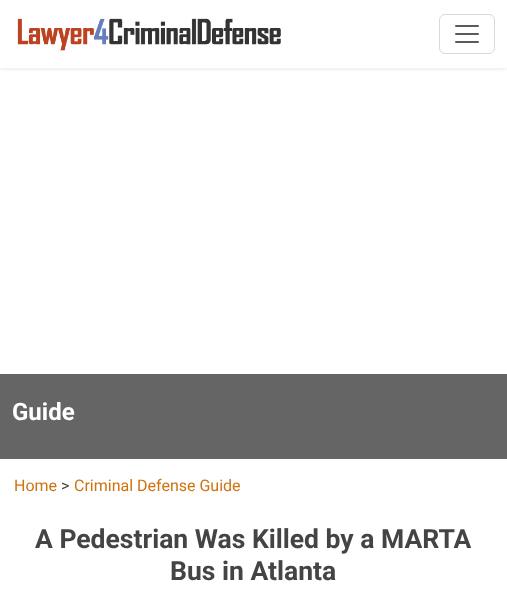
<!DOCTYPE html>
<meta charset="utf-8">
<style>body { margin: 0 } canvas { display: block }</style>
<canvas id="canvas" width="507" height="616"></canvas>
<script type="module">
  const canvas = document.getElementById("canvas");
  const g = canvas.getContext("2d");
  g.miterLimit = 4;
  g.fontKerning = "normal";
  function drawText(s, x, y, [font, color]) {
    g.font = font;
    g.fillStyle = color;
    g.fillText(s, x, y);
  }
  function fillBox(x, y, w, h, color) {
    g.fillStyle = color;
    g.fillRect(x, y, w, h);
  }
  async function drawPicture(src, x, y, w, h) {
    const img = new Image();
    img.src = src;
    await img.decode();
    g.drawImage(img, x, y, w, h);
  }

  const s1 = ["bold 24px Roboto", "#FFFFFF"];
  const s2 = ["16px Roboto", "#D0720E"];
  const s3 = ["16px Roboto", "#444444"];
  const s4 = ["bold 26.5px Roboto", "#444444"];

  fillBox(0, 0, 507, 616, "#FFFFFF");
  g.save();
  g.beginPath();
  g.rect(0, 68, 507, 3);
  g.clip();
  g.fillStyle = "rgba(0, 0, 0, 0.07)";
  g.filter = "blur(2px)";
  g.beginPath();
  g.rect(0, 2, 507, 68);
  g.fill();
  g.filter = "none";
  g.restore();
  await drawPicture("pic1.png", 17, 18, 264, 33);
  g.beginPath();
  g.roundRect(439.5, 14.5, 55, 39, 5.5);
  g.strokeStyle = "#D9D9D9";
  g.stroke();
  await drawPicture("pic2.png", 455, 25, 24, 18);
  fillBox(0, 374, 507, 85, "#656565");
  drawText("Guide", 12, 420, s1);
  drawText("Home", 14, 491, s2);
  drawText(">", 61, 491, s3);
  drawText("Criminal Defense Guide", 74, 491, s2);
  drawText("A Pedestrian Was Killed by a MARTA", 35, 548, s4);
  drawText("Bus in Atlanta", 170, 580, s4);
</script>
